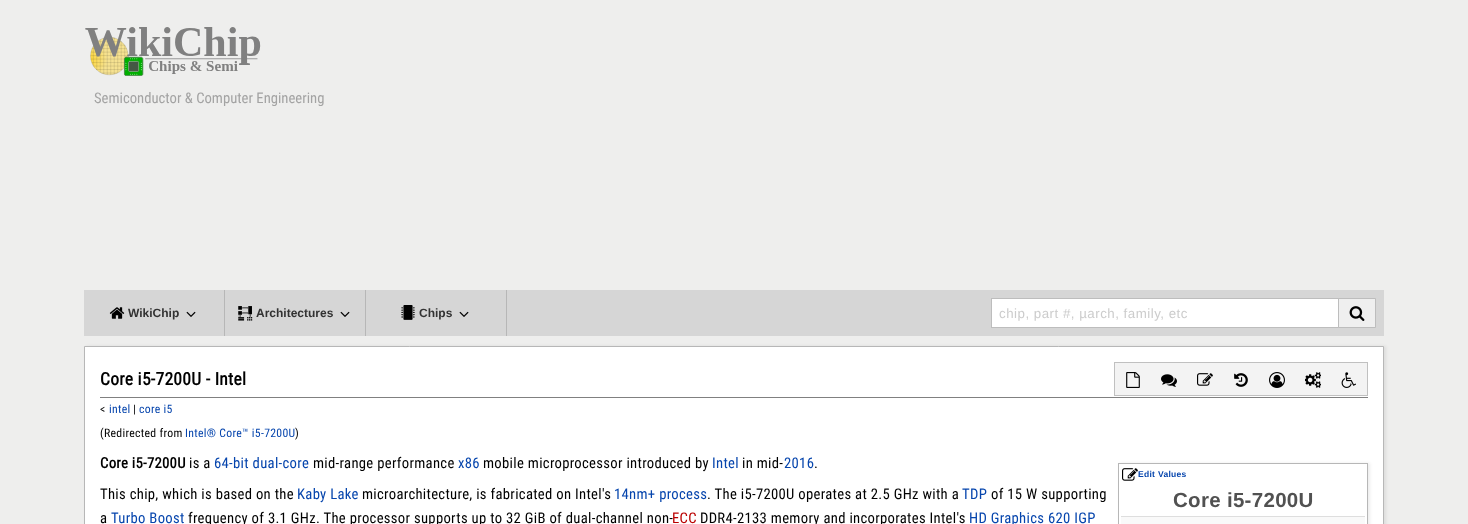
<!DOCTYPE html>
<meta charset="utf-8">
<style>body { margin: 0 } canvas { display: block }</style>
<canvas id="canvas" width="1468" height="524"></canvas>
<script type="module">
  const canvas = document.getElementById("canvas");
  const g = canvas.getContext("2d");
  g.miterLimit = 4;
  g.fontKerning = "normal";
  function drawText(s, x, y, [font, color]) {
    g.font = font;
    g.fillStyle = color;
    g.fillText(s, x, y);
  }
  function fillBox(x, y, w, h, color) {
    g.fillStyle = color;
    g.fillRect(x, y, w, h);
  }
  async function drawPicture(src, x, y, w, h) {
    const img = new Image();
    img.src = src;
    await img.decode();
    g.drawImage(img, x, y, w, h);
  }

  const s1 = ["14.7px Roboto Condensed", "#A3A3A3"];
  const s2 = ["bold 12px Liberation Sans", "#333333"];
  const s3 = ["13.3px Liberation Sans", "#CCCCCC"];
  const s4 = ["bold 17.5px Roboto Condensed", "#000000"];
  const s5 = ["11.75px Roboto Condensed", "#000000"];
  const s6 = ["11.75px Roboto Condensed", "#0645AD"];
  const s7 = ["bold 14.7px Roboto Condensed", "#000000"];
  const s8 = ["14.7px Roboto Condensed", "#000000"];
  const s9 = ["14.7px Roboto Condensed", "#0645AD"];
  const s10 = ["14.7px Roboto Condensed", "#BA0000"];
  const s11 = ["bold 8.5px Liberation Sans", "#0645AD"];
  const s12 = ["bold 20.5px Liberation Sans", "#515151"];

  fillBox(0, 0, 1468, 524, "#EEEEED");
  await drawPicture("pic1.png", 85, 27, 176, 49);
  drawText("Semiconductor & Computer Engineering", 94, 103, s1);
  fillBox(84, 290, 1300, 46, "#D6D6D6");
  fillBox(224, 290, 1, 46, "#B7B7B7");
  await drawPicture("pic2.png", 109, 307, 16, 12);
  drawText("WikiChip", 128, 317, s2);
  await drawPicture("pic3.png", 186, 311, 10, 6);
  fillBox(365, 290, 1, 46, "#B7B7B7");
  await drawPicture("pic4.png", 238, 306, 15, 15);
  drawText("Architectures", 256, 317, s2);
  await drawPicture("pic3.png", 340, 311, 10, 6);
  fillBox(506, 290, 1, 46, "#B7B7B7");
  await drawPicture("pic5.png", 401, 305, 14, 15);
  drawText("Chips", 419, 317, s2);
  await drawPicture("pic3.png", 459, 311, 10, 6);
  fillBox(992, 299, 346, 28, "#FFFFFF");
  g.strokeStyle = "#BDBDBD";
  g.strokeRect(991.5, 298.5, 349, 29);
  g.letterSpacing = "0.5px";
  drawText("chip, part #, µarch, family, etc", 999, 318, s3);
  g.fillStyle = "#EFEFEF";
  g.beginPath();
  g.rect(1338.5, 298.5, 37, 29);
  g.fill();
  g.stroke();
  await drawPicture("pic6.png", 1349, 306, 16, 15);
  g.fillStyle = "rgba(0, 0, 0, 0.07)";
  g.filter = "blur(1.5px)";
  g.beginPath();
  g.rect(86, 346, 1300, 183);
  g.fill();
  g.filter = "none";
  g.fillStyle = "#FFFFFF";
  g.beginPath();
  g.rect(84.5, 346.5, 1299, 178);
  g.fill();
  g.strokeStyle = "#B7B7B7";
  g.stroke();
  fillBox(100, 397, 1268, 1, "#808080");
  g.letterSpacing = "0.3px";
  drawText("Core i5-7200U - Intel", 100, 385, s4);
  g.strokeStyle = "#C0C0C0";
  g.strokeRect(1114.5, 362.5, 253, 33);
  fillBox(1115, 363, 252, 32, "#F3F3F3");
  await drawPicture("pic7.png", 1126, 372, 14, 16);
  await drawPicture("pic8.png", 1161, 374, 16, 13);
  await drawPicture("pic9.png", 1197, 373, 16, 13);
  await drawPicture("pic10.png", 1234, 373, 14, 14);
  await drawPicture("pic11.png", 1269, 372, 16, 16);
  await drawPicture("pic12.png", 1305, 372, 16, 16);
  await drawPicture("pic13.png", 1341, 372, 15, 16);
  drawText("<", 100, 413, s5);
  drawText("intel", 109, 413, s6);
  drawText(" |", 130, 413, s5);
  drawText("core i5", 139, 413, s6);
  drawText("(Redirected from", 100, 437, s5);
  drawText("Intel® Core™ i5-7200U", 185, 437, s6);
  drawText(")", 295, 437, s5);
  drawText("Core i5-7200U", 100, 468, s7);
  drawText("is a", 189, 468, s8);
  drawText("64-bit dual-core", 214, 468, s9);
  drawText("mid-range performance", 313, 468, s8);
  drawText("x86", 458, 468, s9);
  drawText("mobile microprocessor introduced by", 483, 468, s8);
  drawText("Intel", 712, 468, s9);
  drawText("in mid-", 742, 468, s8);
  drawText("2016", 784, 468, s9);
  drawText(".", 814, 468, s8);
  drawText("This chip, which is based on the", 100, 499, s8);
  drawText("Kaby Lake", 297, 499, s9);
  drawText("microarchitecture, is fabricated on Intel's", 362, 499, s8);
  drawText("14nm+ process", 614, 499, s9);
  drawText(". The i5-7200U operates at 2.5 GHz with a", 707, 499, s8);
  drawText("TDP", 962, 499, s9);
  drawText("of 15 W supporting", 991, 499, s8);
  drawText("a", 100, 523, s8);
  drawText("Turbo Boost", 111, 523, s9);
  drawText("frequency of 3.1 GHz. The processor supports up to 32 GiB of dual-channel non-", 188, 523, s8);
  drawText("ECC", 672, 523, s10);
  drawText("DDR4-2133 memory and incorporates Intel's", 700, 523, s8);
  drawText("HD Graphics 620 IGP", 969, 523, s9);
  g.save();
  g.beginPath();
  g.moveTo(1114, 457);
  g.lineTo(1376, 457);
  g.lineTo(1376, 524);
  g.lineTo(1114, 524);
  g.closePath();
  g.moveTo(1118, 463);
  g.lineTo(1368, 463);
  g.lineTo(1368, 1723);
  g.lineTo(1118, 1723);
  g.closePath();
  g.clip("evenodd");
  g.fillStyle = "rgba(0, 0, 0, 0.07)";
  g.filter = "blur(1.5px)";
  g.beginPath();
  g.rect(1120, 463, 250, 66);
  g.fill();
  g.filter = "none";
  g.restore();
  g.strokeStyle = "#B7B7B7";
  g.strokeRect(1118.5, 463.5, 249, 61);
  await drawPicture("pic14.png", 1122, 468, 16, 13);
  drawText("Edit Values", 1138, 477, s11);
  drawText("Core i5-7200U", 1173, 507, s12);
  fillBox(1121, 517, 244, 7, "#F9F9F9");
  fillBox(1121, 516, 244, 1, "#DEDEDE");
</script>
